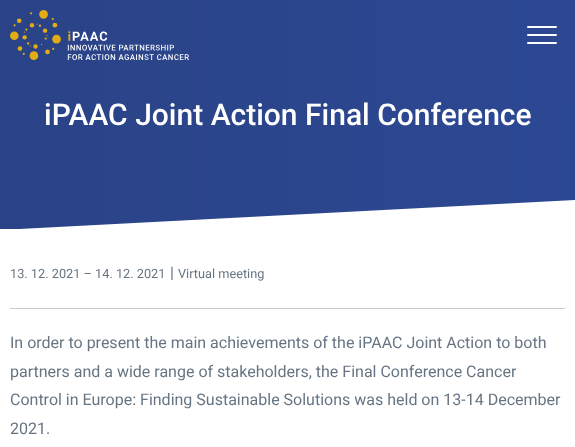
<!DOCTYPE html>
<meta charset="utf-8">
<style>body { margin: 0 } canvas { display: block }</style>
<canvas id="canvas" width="575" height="447"></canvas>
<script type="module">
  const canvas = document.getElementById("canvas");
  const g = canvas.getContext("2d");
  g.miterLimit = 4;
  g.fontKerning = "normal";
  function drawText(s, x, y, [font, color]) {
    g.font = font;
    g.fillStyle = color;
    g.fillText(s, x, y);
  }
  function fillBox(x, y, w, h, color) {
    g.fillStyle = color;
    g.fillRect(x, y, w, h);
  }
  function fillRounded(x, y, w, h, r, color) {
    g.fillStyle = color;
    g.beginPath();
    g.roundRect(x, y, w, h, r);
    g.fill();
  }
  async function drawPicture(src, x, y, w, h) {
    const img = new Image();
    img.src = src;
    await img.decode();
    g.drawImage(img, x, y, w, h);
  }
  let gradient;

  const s1 = ["500 30px Roboto", "#FFFFFF"];
  const s2 = ["12.75px Roboto", "#677583"];
  const s3 = ["16px Roboto", "#677583"];

  fillBox(0, 0, 575, 447, "#FFFFFF");
  gradient = g.createLinearGradient(0, 115, 575, 114);
  gradient.addColorStop(0, "#2A4387");
  gradient.addColorStop(1, "#2D4893");
  g.fillStyle = gradient;
  g.fillRect(0, 0, 575, 229);
  await drawPicture("pic1.png", 10, 10, 179, 50);
  fillRounded(527, 26, 30, 2, 1, "#FFFFFF");
  fillRounded(527, 34, 30, 2, 1, "#FFFFFF");
  fillRounded(527, 42, 30, 2, 1, "#FFFFFF");
  drawText("iPAAC Joint Action Final Conference", 44, 125, s1);
  g.beginPath();
  g.moveTo(575, 230);
  g.lineTo(575, 200);
  g.lineTo(0, 230);
  g.fill();
  drawText("13. 12. 2021 – 14. 12. 2021", 10, 278, s2);
  drawText("|", 170, 278, s3);
  drawText("Virtual meeting", 178, 278, s2);
  fillBox(10, 308, 555, 1, "#CACACA");
  drawText("In order to present the main achievements of the iPAAC Joint Action to both", 10, 348, s3);
  drawText("partners and a wide range of stakeholders, the Final Conference Cancer", 10, 377, s3);
  drawText("Control in Europe: Finding Sustainable Solutions was held on 13-14 December", 10, 405, s3);
  drawText("2021.", 10, 434, s3);
</script>
